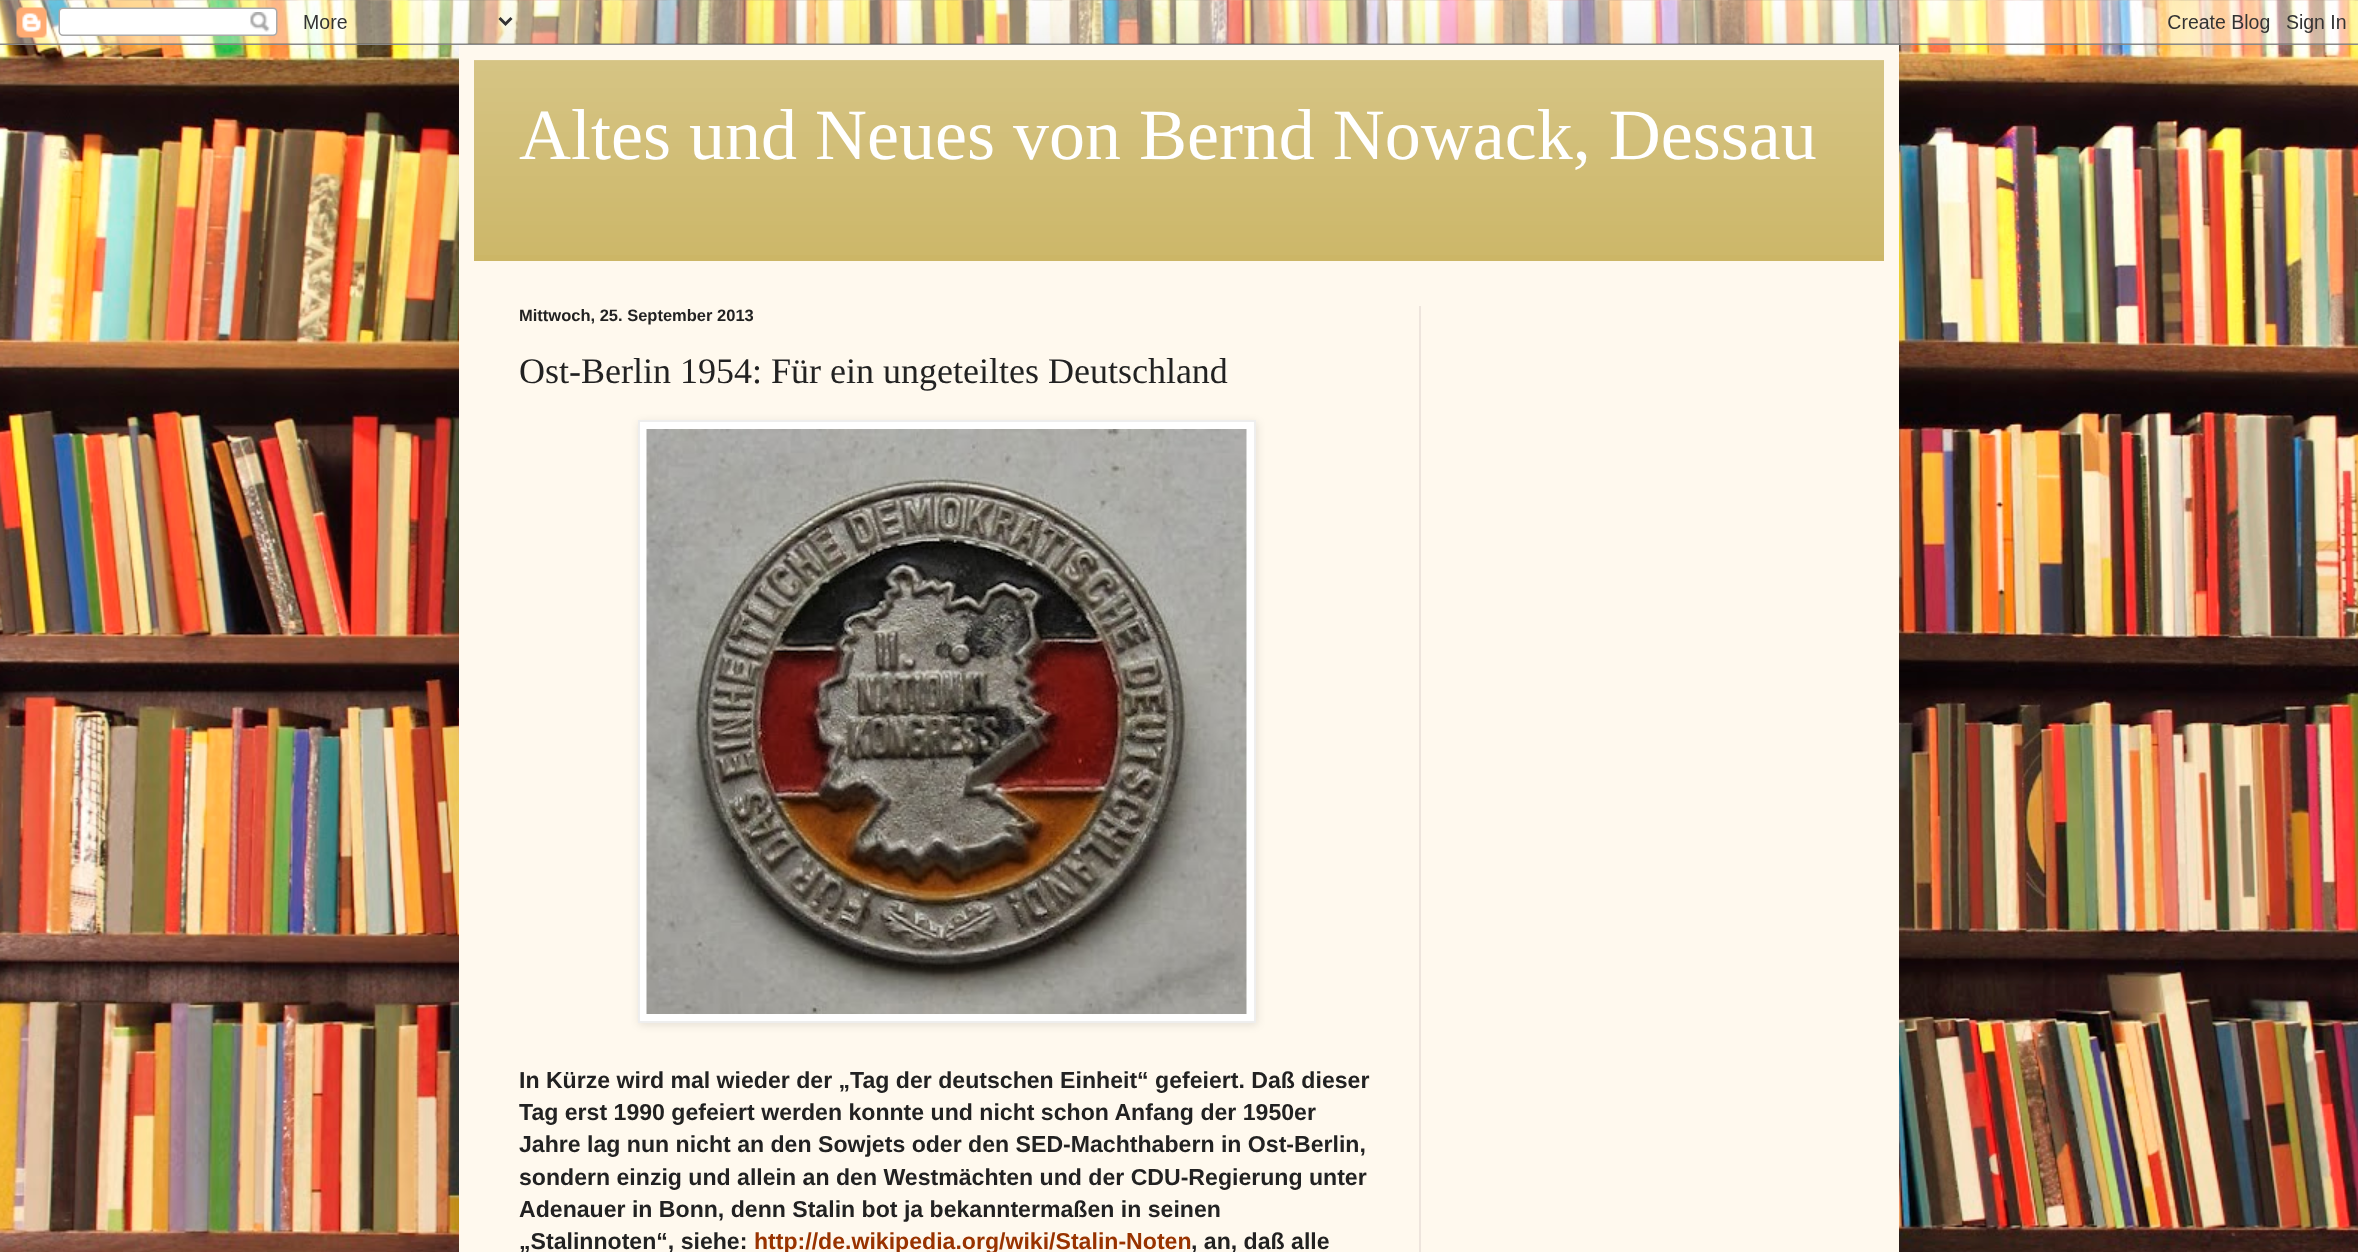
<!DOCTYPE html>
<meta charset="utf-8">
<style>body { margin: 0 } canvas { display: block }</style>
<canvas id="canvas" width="2358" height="1252"></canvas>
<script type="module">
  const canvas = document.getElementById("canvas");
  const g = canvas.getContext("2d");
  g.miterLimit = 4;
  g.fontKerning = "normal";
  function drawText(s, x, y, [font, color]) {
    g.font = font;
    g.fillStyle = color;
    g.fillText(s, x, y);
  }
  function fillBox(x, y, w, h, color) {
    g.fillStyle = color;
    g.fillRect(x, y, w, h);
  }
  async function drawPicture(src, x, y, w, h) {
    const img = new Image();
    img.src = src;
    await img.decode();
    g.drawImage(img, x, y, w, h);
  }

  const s1 = ["72px Liberation Serif", "#FFFFFF"];
  const s2 = ["bold 16.5px Liberation Sans", "#222222"];
  const s3 = ["36px Liberation Serif", "#222222"];
  const s4 = ["bold 23.1px Liberation Sans", "#222222"];
  const s5 = ["bold 23.1px Liberation Sans", "#993300"];

  fillBox(0, 0, 2358, 1252, "#FFFFFF");
  await drawPicture("pic1.png", 0, 0, 2358, 1252);
  g.fillStyle = "rgba(0, 0, 0, 0.15)";
  g.filter = "blur(30px)";
  g.beginPath();
  g.rect(459, 45, 1440, 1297);
  g.fill();
  g.filter = "none";
  await drawPicture("pic2.png", 0, 0, 2358, 45);
  fillBox(459, 45, 1440, 1207, "#FFF9EE");
  fillBox(474, 60, 1410, 201, "#CCB666");
  await drawPicture("pic3.png", 474, 60, 1410, 195);
  drawText("Altes und Neues von Bernd Nowack, Dessau", 519, 159, s1);
  drawText("Mittwoch, 25. September 2013", 519, 321, s2);
  drawText("Ost-Berlin 1954: Für ein ungeteiltes Deutschland", 519, 383, s3);
  g.fillStyle = "rgba(0, 0, 0, 0.1)";
  g.filter = "blur(4px)";
  g.beginPath();
  g.rect(639, 422, 618, 603);
  g.fill();
  g.filter = "none";
  g.fillStyle = "#FFFFFF";
  g.beginPath();
  g.rect(639, 421, 616, 601);
  g.fill();
  g.strokeStyle = "#EEEEEE";
  g.lineWidth = 2;
  g.stroke();
  await drawPicture("pic4.png", 646, 429, 601, 585);
  drawText("In Kürze wird mal wieder der „Tag der deutschen Einheit“ gefeiert. Daß dieser", 519, 1088, s4);
  drawText("Tag erst 1990 gefeiert werden konnte und nicht schon Anfang der 1950er", 519, 1120, s4);
  drawText("Jahre lag nun nicht an den Sowjets oder den SED-Machthabern in Ost-Berlin,", 519, 1152, s4);
  drawText("sondern einzig und allein an den Westmächten und der CDU-Regierung unter", 519, 1185, s4);
  drawText("Adenauer in Bonn, denn Stalin bot ja bekanntermaßen in seinen", 519, 1217, s4);
  drawText("„Stalinnoten“, siehe:", 519, 1249, s4);
  drawText("http://de.wikipedia.org/wiki/Stalin-Noten", 754, 1249, s5);
  drawText(", an, daß alle", 1191, 1249, s4);
  fillBox(1419, 306, 2, 946, "#EEE5DD");
</script>
